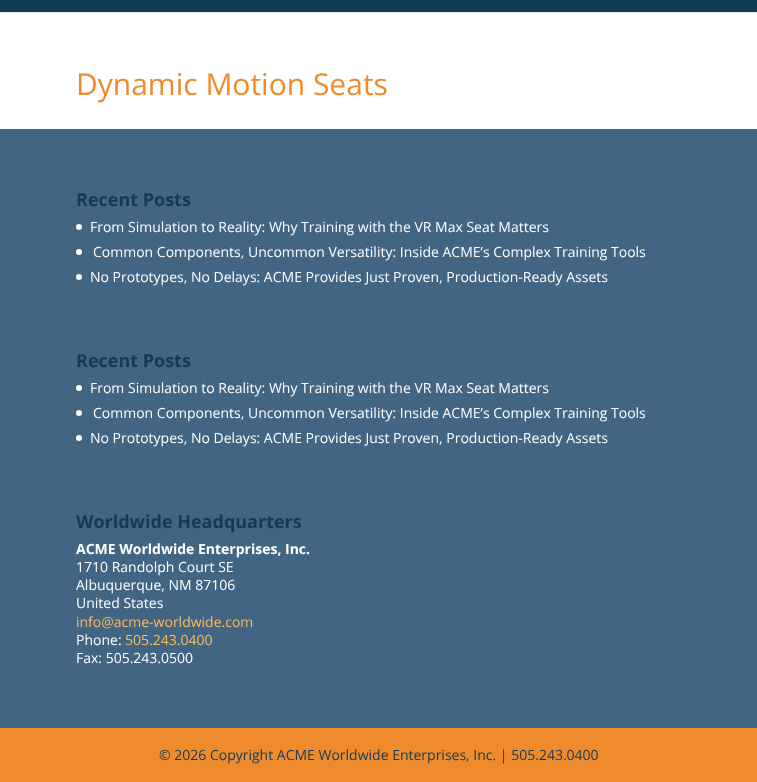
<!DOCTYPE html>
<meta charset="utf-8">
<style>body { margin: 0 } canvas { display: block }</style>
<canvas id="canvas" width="757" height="782"></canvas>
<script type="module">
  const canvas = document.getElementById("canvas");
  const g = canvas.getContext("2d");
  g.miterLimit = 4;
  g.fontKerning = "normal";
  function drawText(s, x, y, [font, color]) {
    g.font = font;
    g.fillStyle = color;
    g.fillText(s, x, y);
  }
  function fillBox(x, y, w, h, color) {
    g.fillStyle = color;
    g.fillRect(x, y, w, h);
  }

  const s1 = ["30px Open Sans", "#EF8B2D"];
  const s2 = ["bold 18px Open Sans", "#123B56"];
  const s3 = ["14px Open Sans", "#FFFFFF"];
  const s4 = ["bold 14px Open Sans", "#FFFFFF"];
  const s5 = ["14px Open Sans", "#FFBC5D"];
  const s6 = ["14px Open Sans", "#123B56"];

  fillBox(0, 0, 757, 782, "#FFFFFF");
  fillBox(0, 12, 757, 1, "#E6E6E6");
  fillBox(0, 0, 757, 12, "#123B56");
  drawText("Dynamic Motion Seats", 76, 95, s1);
  fillBox(0, 129, 757, 599, "#426583");
  drawText("Recent Posts", 76, 206, s2);
  g.fillStyle = "#FFFFFF";
  g.beginPath();
  g.arc(79, 227, 3, 0, Math.PI * 2);
  g.fill();
  drawText("From Simulation to Reality: Why Training with the VR Max Seat Matters", 90, 232, s3);
  g.beginPath();
  g.arc(79, 252, 3, 0, Math.PI * 2);
  g.fill();
  drawText("Common Components, Uncommon Versatility: Inside ACME’s Complex Training Tools", 93, 257, s3);
  g.beginPath();
  g.arc(79, 277, 3, 0, Math.PI * 2);
  g.fill();
  drawText("No Prototypes, No Delays: ACME Provides Just Proven, Production-Ready Assets", 90, 282, s3);
  drawText("Recent Posts", 76, 367, s2);
  g.fillStyle = "#FFFFFF";
  g.beginPath();
  g.arc(79, 388, 3, 0, Math.PI * 2);
  g.fill();
  drawText("From Simulation to Reality: Why Training with the VR Max Seat Matters", 90, 393, s3);
  g.beginPath();
  g.arc(79, 413, 3, 0, Math.PI * 2);
  g.fill();
  drawText("Common Components, Uncommon Versatility: Inside ACME’s Complex Training Tools", 93, 418, s3);
  g.beginPath();
  g.arc(79, 438, 3, 0, Math.PI * 2);
  g.fill();
  drawText("No Prototypes, No Delays: ACME Provides Just Proven, Production-Ready Assets", 90, 443, s3);
  drawText("Worldwide Headquarters", 76, 528, s2);
  drawText("ACME Worldwide Enterprises, Inc.", 76, 554, s4);
  drawText("1710 Randolph Court SE", 76, 572, s3);
  drawText("Albuquerque, NM 87106", 76, 590, s3);
  drawText("United States", 76, 608, s3);
  drawText("info@acme-worldwide.com", 76, 627, s5);
  drawText("Phone:", 76, 645, s3);
  drawText("505.243.0400", 125, 645, s5);
  drawText("Fax: 505.243.0500", 76, 663, s3);
  fillBox(0, 728, 757, 54, "#EF8B2D");
  drawText("© 2026 Copyright ACME Worldwide Enterprises, Inc. | 505.243.0400", 159, 760, s6);
</script>
